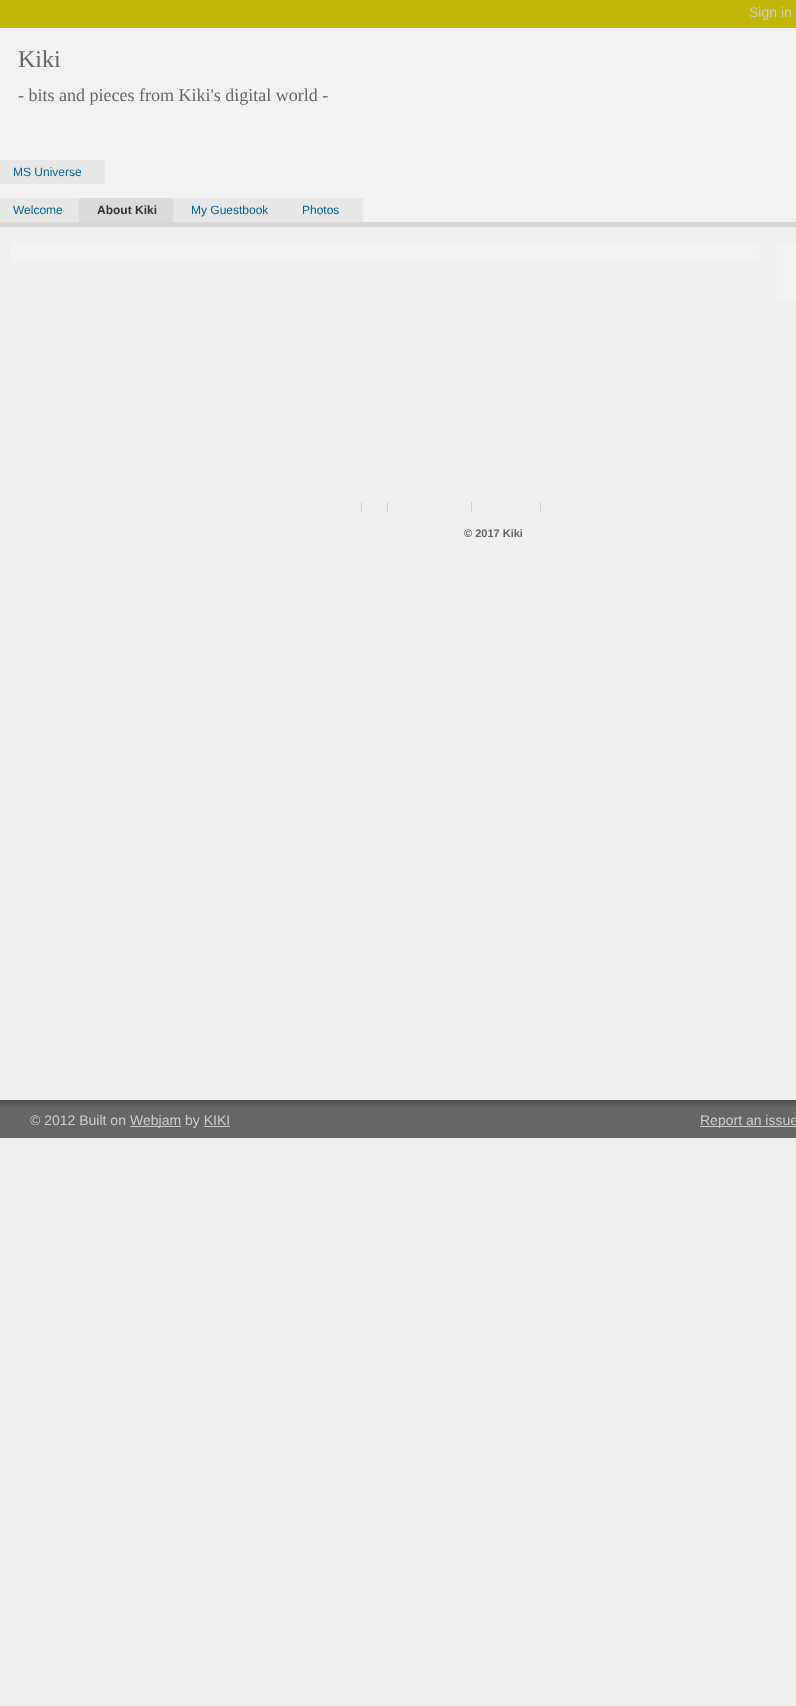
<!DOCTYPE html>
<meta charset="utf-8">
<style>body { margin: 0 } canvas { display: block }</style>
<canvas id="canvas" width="796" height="1706"></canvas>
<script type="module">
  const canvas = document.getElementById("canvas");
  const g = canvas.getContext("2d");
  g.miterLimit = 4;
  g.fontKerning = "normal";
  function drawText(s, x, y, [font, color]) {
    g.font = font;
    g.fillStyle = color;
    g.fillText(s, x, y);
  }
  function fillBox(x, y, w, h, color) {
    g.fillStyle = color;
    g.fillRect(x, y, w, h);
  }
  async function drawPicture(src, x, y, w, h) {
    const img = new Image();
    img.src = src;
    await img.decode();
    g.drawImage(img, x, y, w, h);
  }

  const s1 = ["14px Liberation Sans", "#CCCCCC"];
  const s2 = ["24px Liberation Serif", "#666666"];
  const s3 = ["18px Liberation Serif", "#666666"];
  const s4 = ["12px Liberation Sans", "#006699"];
  const s5 = ["bold 12px Liberation Sans", "#333333"];
  const s6 = ["11px Liberation Sans", "#CCCCCC"];
  const s7 = ["bold 11px Liberation Sans", "#666666"];

  fillBox(0, 0, 796, 1706, "#EFEFEF");
  fillBox(0, 0, 796, 28, "#C2B706");
  drawText("Sign in", 749, 17, s1);
  fillBox(0, 28, 796, 194, "#F2F2F2");
  fillBox(0, 222, 796, 5, "#D7D7D7");
  drawText("Kiki", 18, 67, s2);
  drawText("- bits and pieces from Kiki's digital world -", 18, 101, s3);
  fillBox(0, 160, 105, 24, "#E7E7E7");
  drawText("MS Universe", 13, 176, s4);
  fillBox(0, 198, 79, 24, "#E7E7E7");
  drawText("Welcome", 13, 214, s4);
  fillBox(79, 198, 94, 24, "#DBDBDB");
  drawText("About Kiki", 97, 214, s5);
  fillBox(173, 198, 190, 24, "#E7E7E7");
  drawText("My Guestbook", 191, 214, s4);
  drawText("Photos", 302, 214, s4);
  fillBox(10, 242, 749, 20, "#F2F2F2");
  fillBox(777, 242, 19, 58, "#F2F2F2");
  drawText("|", 360, 510, s6);
  drawText("|", 386, 510, s6);
  drawText("|", 470, 510, s6);
  drawText("|", 539, 510, s6);
  drawText("© 2017 Kiki", 464, 537, s7);
  fillBox(0, 1107, 796, 31, "#666666");
  await drawPicture("pic1.png", 0, 1100, 796, 7);
  drawText("© 2012 Built on", 30, 1125, s1);
  fillBox(130, 1126, 51, 1, "#CCCCCC");
  drawText("Webjam by KIKI", 130, 1125, s1);
  fillBox(204, 1126, 26, 1, "#CCCCCC");
  fillBox(700, 1126, 96, 1, "#CCCCCC");
  drawText("Report an issue", 700, 1125, s1);
</script>
